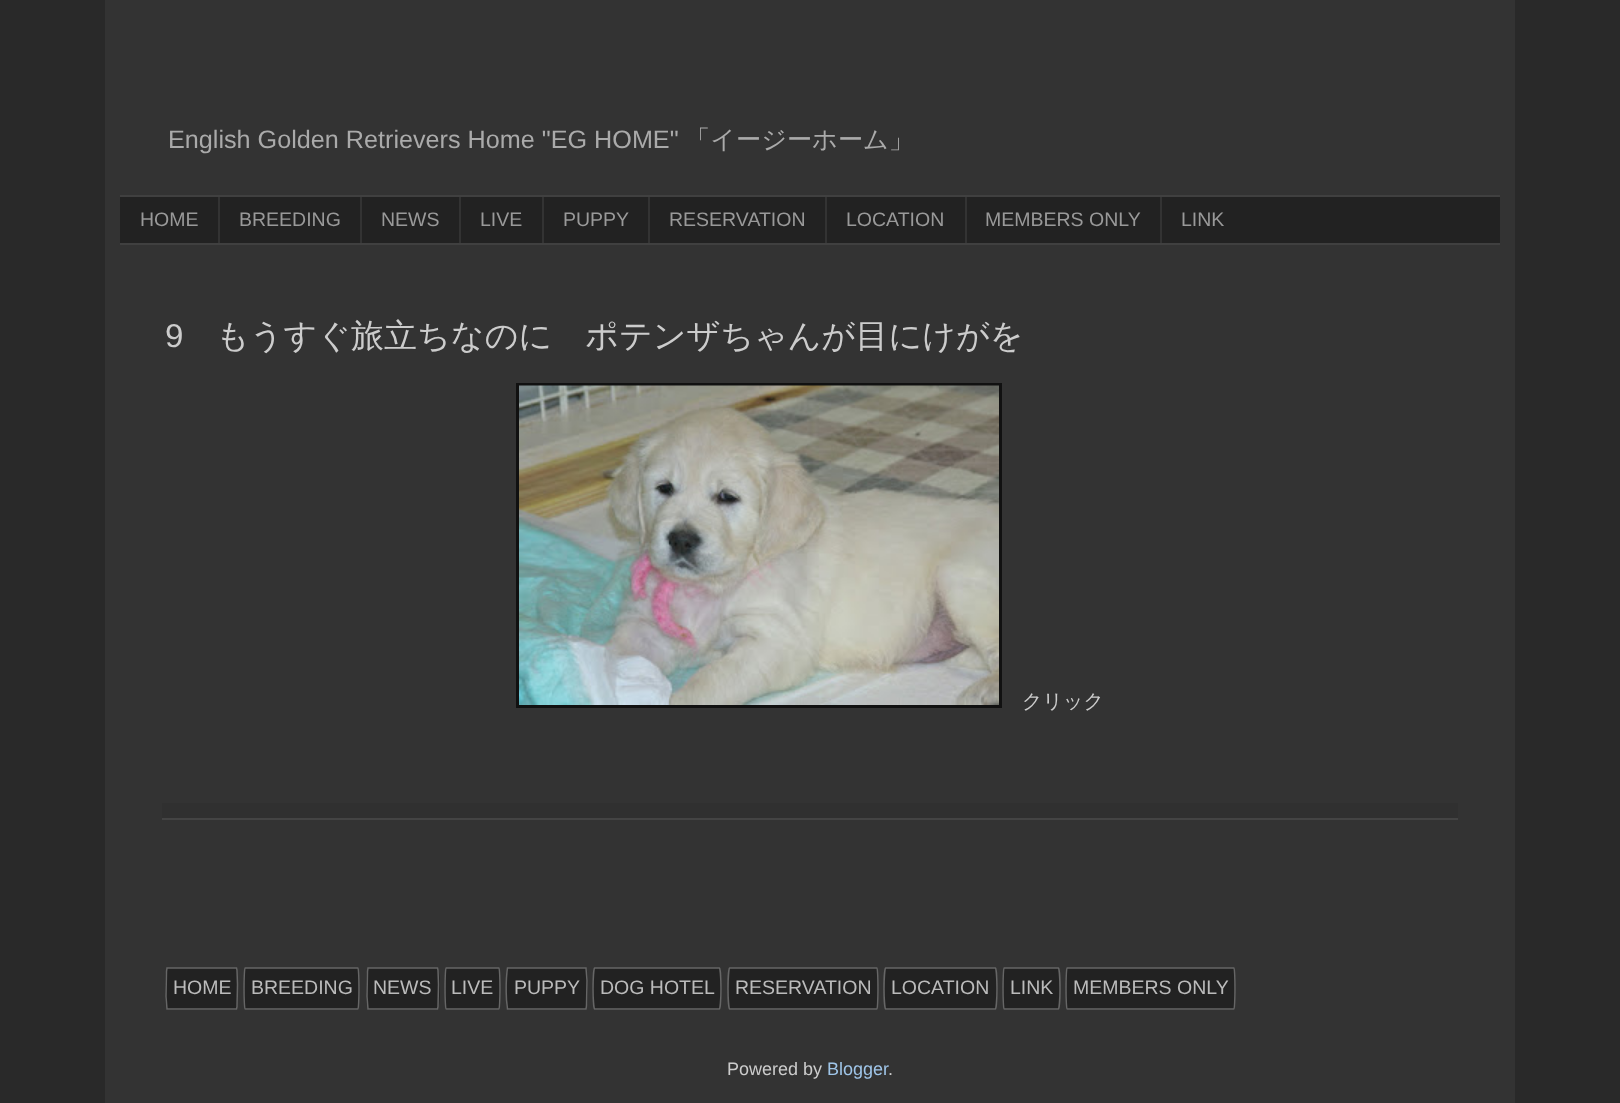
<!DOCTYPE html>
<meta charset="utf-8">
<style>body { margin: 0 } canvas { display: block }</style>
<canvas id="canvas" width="1620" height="1103"></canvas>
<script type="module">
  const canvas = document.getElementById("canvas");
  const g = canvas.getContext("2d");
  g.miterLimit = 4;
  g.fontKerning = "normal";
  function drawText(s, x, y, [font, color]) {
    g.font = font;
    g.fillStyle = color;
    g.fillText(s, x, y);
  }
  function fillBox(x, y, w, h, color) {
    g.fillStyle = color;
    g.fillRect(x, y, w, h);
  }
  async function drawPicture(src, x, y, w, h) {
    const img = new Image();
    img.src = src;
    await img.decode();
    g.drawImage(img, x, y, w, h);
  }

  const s1 = ["25.2px Liberation Sans", "#AAAAAA"];
  const s2 = ["500 25.2px WenQuanYi Zen Hei", "#AAAAAA"];
  const s3 = ["19.5px Liberation Sans", "#999999"];
  const s4 = ["33px Liberation Sans", "#CCCCCC"];
  const s5 = ["500 33px WenQuanYi Zen Hei", "#CCCCCC"];
  const s6 = ["500 20px WenQuanYi Zen Hei", "#CCCCCC"];
  const s7 = ["19.5px Liberation Sans", "#BBBBBB"];
  const s8 = ["18px Liberation Sans", "#CCCCCC"];
  const s9 = ["18px Liberation Sans", "#9FC5E8"];

  fillBox(0, 0, 1620, 1103, "#292929");
  fillBox(105, 0, 1410, 1103, "#333333");
  drawText("English Golden Retrievers Home \"EG HOME\"", 168, 148, s1);
  drawText("「イージーホーム」", 685, 148, s2);
  fillBox(120, 197, 1380, 46, "#222222");
  fillBox(120, 195, 1380, 2, "#404040");
  fillBox(120, 243, 1380, 2, "#404040");
  drawText("HOME", 140, 226, s3);
  fillBox(218, 197, 2, 46, "#333333");
  drawText("BREEDING", 239, 226, s3);
  fillBox(360, 197, 2, 46, "#333333");
  drawText("NEWS", 381, 226, s3);
  fillBox(459, 197, 2, 46, "#333333");
  drawText("LIVE", 480, 226, s3);
  fillBox(542, 197, 2, 46, "#333333");
  drawText("PUPPY", 563, 226, s3);
  fillBox(648, 197, 2, 46, "#333333");
  drawText("RESERVATION", 669, 226, s3);
  fillBox(825, 197, 2, 46, "#333333");
  drawText("LOCATION", 846, 226, s3);
  fillBox(965, 197, 2, 46, "#333333");
  drawText("MEMBERS ONLY", 985, 226, s3);
  fillBox(1160, 197, 2, 46, "#333333");
  drawText("LINK", 1181, 226, s3);
  drawText("9", 165, 347, s4);
  drawText("もうすぐ旅立ちなのに　ポテンザちゃんが目にけがを", 216, 347, s5);
  fillBox(516, 383, 486, 325, "#111111");
  await drawPicture("pic1.png", 519, 385, 480, 320);
  drawText("クリック", 1022, 708, s6);
  fillBox(162, 803, 1296, 15, "#303030");
  fillBox(162, 818, 1296, 2, "#444444");
  g.fillStyle = "#222222";
  g.beginPath();
  g.moveTo(167, 968);
  g.lineTo(236, 968);
  g.bezierCurveTo(238, 968, 238, 977, 238, 988);
  g.bezierCurveTo(238, 1000, 238, 1010, 236, 1010);
  g.lineTo(167, 1010);
  g.bezierCurveTo(166, 1010, 165, 1000, 165, 988);
  g.bezierCurveTo(165, 977, 166, 968, 167, 968);
  g.closePath();
  g.fill();
  g.beginPath();
  g.moveTo(167, 968);
  g.lineTo(236.5, 968);
  g.lineTo(237, 970);
  g.lineTo(237.5, 984.5);
  g.lineTo(237, 1007);
  g.lineTo(236.5, 1009);
  g.lineTo(167, 1009);
  g.lineTo(166, 996.5);
  g.lineTo(166.5, 971.5);
  g.closePath();
  g.strokeStyle = "#666666";
  g.lineWidth = 1.5;
  g.stroke();
  drawText("HOME", 173, 994, s7);
  g.fillStyle = "#222222";
  g.beginPath();
  g.moveTo(245, 968);
  g.lineTo(358, 968);
  g.bezierCurveTo(359, 968, 360, 977, 360, 988);
  g.bezierCurveTo(360, 1000, 359, 1010, 358, 1010);
  g.lineTo(245, 1010);
  g.bezierCurveTo(244, 1010, 243, 1000, 243, 988);
  g.bezierCurveTo(243, 977, 244, 968, 245, 968);
  g.closePath();
  g.fill();
  g.beginPath();
  g.moveTo(245, 968);
  g.lineTo(358, 968);
  g.bezierCurveTo(358.5, 968, 359, 977.5, 359, 988.5);
  g.bezierCurveTo(359, 999.5, 358.5, 1009, 358, 1009);
  g.lineTo(245, 1009);
  g.bezierCurveTo(244.5, 1009, 244, 999.5, 244, 988.5);
  g.bezierCurveTo(244, 977.5, 244.5, 968, 245, 968);
  g.closePath();
  g.stroke();
  drawText("BREEDING", 251, 994, s7);
  g.fillStyle = "#222222";
  g.beginPath();
  g.moveTo(368, 968);
  g.lineTo(437, 968);
  g.bezierCurveTo(439, 968, 440, 977, 440, 988);
  g.bezierCurveTo(440, 1000, 439, 1010, 437, 1010);
  g.lineTo(368, 1010);
  g.bezierCurveTo(367, 1010, 366, 1000, 366, 988);
  g.bezierCurveTo(366, 977, 367, 968, 368, 968);
  g.closePath();
  g.fill();
  g.beginPath();
  g.moveTo(368, 968);
  g.lineTo(437.5, 968);
  g.lineTo(438, 970);
  g.lineTo(438.5, 984.5);
  g.lineTo(438, 1007);
  g.lineTo(437.5, 1009);
  g.lineTo(368, 1009);
  g.lineTo(367, 996.5);
  g.lineTo(367.5, 971.5);
  g.closePath();
  g.stroke();
  drawText("NEWS", 373, 994, s7);
  g.fillStyle = "#222222";
  g.beginPath();
  g.moveTo(446, 968);
  g.lineTo(499, 968);
  g.bezierCurveTo(500, 968, 501, 977, 501, 988);
  g.bezierCurveTo(501, 1000, 500, 1010, 499, 1010);
  g.lineTo(446, 1010);
  g.bezierCurveTo(445, 1010, 444, 1000, 444, 988);
  g.bezierCurveTo(444, 977, 445, 968, 446, 968);
  g.closePath();
  g.fill();
  g.beginPath();
  g.moveTo(446, 968);
  g.lineTo(499, 968);
  g.bezierCurveTo(499.5, 968, 500, 977.5, 500, 988.5);
  g.bezierCurveTo(500, 999.5, 499.5, 1009, 499, 1009);
  g.lineTo(446, 1009);
  g.bezierCurveTo(445.5, 1009, 445, 999.5, 445, 988.5);
  g.bezierCurveTo(445, 977.5, 445.5, 968, 446, 968);
  g.closePath();
  g.stroke();
  drawText("LIVE", 451, 994, s7);
  g.fillStyle = "#222222";
  g.beginPath();
  g.moveTo(508, 968);
  g.lineTo(586, 968);
  g.bezierCurveTo(587, 968, 588, 977, 588, 988);
  g.bezierCurveTo(588, 1000, 587, 1010, 586, 1010);
  g.lineTo(508, 1010);
  g.bezierCurveTo(506, 1010, 506, 1000, 506, 988);
  g.bezierCurveTo(506, 977, 506, 968, 508, 968);
  g.closePath();
  g.fill();
  g.beginPath();
  g.moveTo(507.5, 968);
  g.lineTo(586, 968);
  g.lineTo(587, 980.5);
  g.lineTo(586.5, 1005.5);
  g.lineTo(586, 1009);
  g.lineTo(507.5, 1009);
  g.lineTo(506.5, 1000);
  g.bezierCurveTo(506, 990.5, 506, 981, 507, 971.5);
  g.closePath();
  g.stroke();
  drawText("PUPPY", 514, 994, s7);
  g.fillStyle = "#222222";
  g.beginPath();
  g.moveTo(595, 968);
  g.lineTo(719, 968);
  g.bezierCurveTo(721, 968, 722, 977, 722, 988);
  g.bezierCurveTo(722, 1000, 721, 1010, 719, 1010);
  g.lineTo(595, 1010);
  g.bezierCurveTo(593, 1010, 592, 1000, 592, 988);
  g.bezierCurveTo(592, 977, 593, 968, 595, 968);
  g.closePath();
  g.fill();
  g.beginPath();
  g.moveTo(594.5, 968);
  g.lineTo(719.5, 968);
  g.bezierCurveTo(720, 968, 721, 977.5, 721, 988.5);
  g.bezierCurveTo(721, 999.5, 720, 1009, 719.5, 1009);
  g.lineTo(594.5, 1009);
  g.bezierCurveTo(594, 1009, 593, 999.5, 593, 988.5);
  g.bezierCurveTo(593, 977.5, 594, 968, 594.5, 968);
  g.closePath();
  g.stroke();
  drawText("DOG HOTEL", 600, 994, s7);
  g.fillStyle = "#222222";
  g.beginPath();
  g.moveTo(730, 968);
  g.lineTo(877, 968);
  g.bezierCurveTo(878, 968, 879, 977, 879, 988);
  g.bezierCurveTo(879, 1000, 878, 1010, 877, 1010);
  g.lineTo(730, 1010);
  g.bezierCurveTo(728, 1010, 728, 1000, 728, 988);
  g.bezierCurveTo(728, 977, 728, 968, 730, 968);
  g.closePath();
  g.fill();
  g.beginPath();
  g.moveTo(729.5, 968);
  g.lineTo(877, 968);
  g.bezierCurveTo(877.5, 968, 878, 977.5, 878, 988.5);
  g.bezierCurveTo(878, 999.5, 877.5, 1009, 877, 1009);
  g.lineTo(729.5, 1009);
  g.bezierCurveTo(729, 1009, 728, 999.5, 728, 988.5);
  g.bezierCurveTo(728, 977.5, 729, 968, 729.5, 968);
  g.closePath();
  g.stroke();
  drawText("RESERVATION", 735, 994, s7);
  g.fillStyle = "#222222";
  g.beginPath();
  g.moveTo(886, 968);
  g.lineTo(995, 968);
  g.bezierCurveTo(997, 968, 998, 977, 998, 988);
  g.bezierCurveTo(998, 1000, 997, 1010, 995, 1010);
  g.lineTo(886, 1010);
  g.bezierCurveTo(884, 1010, 884, 1000, 884, 988);
  g.bezierCurveTo(884, 977, 884, 968, 886, 968);
  g.closePath();
  g.fill();
  g.beginPath();
  g.moveTo(885.5, 968);
  g.lineTo(995.5, 968);
  g.bezierCurveTo(996, 968, 997, 977.5, 997, 988.5);
  g.bezierCurveTo(997, 999.5, 996, 1009, 995.5, 1009);
  g.lineTo(885.5, 1009);
  g.bezierCurveTo(885, 1009, 884, 999.5, 884, 988.5);
  g.bezierCurveTo(884, 977.5, 885, 968, 885.5, 968);
  g.closePath();
  g.stroke();
  drawText("LOCATION", 891, 994, s7);
  g.fillStyle = "#222222";
  g.beginPath();
  g.moveTo(1004, 968);
  g.lineTo(1058, 968);
  g.bezierCurveTo(1060, 968, 1060, 977, 1060, 988);
  g.bezierCurveTo(1060, 1000, 1060, 1010, 1058, 1010);
  g.lineTo(1004, 1010);
  g.bezierCurveTo(1003, 1010, 1002, 1000, 1002, 988);
  g.bezierCurveTo(1002, 977, 1003, 968, 1004, 968);
  g.closePath();
  g.fill();
  g.beginPath();
  g.moveTo(1004, 968);
  g.lineTo(1058.5, 968);
  g.bezierCurveTo(1059, 968, 1060, 977.5, 1060, 988.5);
  g.bezierCurveTo(1060, 999.5, 1059, 1009, 1058.5, 1009);
  g.lineTo(1004, 1009);
  g.bezierCurveTo(1003.5, 1009, 1003, 999.5, 1003, 988.5);
  g.bezierCurveTo(1003, 977.5, 1003.5, 968, 1004, 968);
  g.closePath();
  g.stroke();
  drawText("LINK", 1010, 994, s7);
  g.fillStyle = "#222222";
  g.beginPath();
  g.moveTo(1067, 968);
  g.lineTo(1234, 968);
  g.bezierCurveTo(1235, 968, 1236, 977, 1236, 988);
  g.bezierCurveTo(1236, 1000, 1235, 1010, 1234, 1010);
  g.lineTo(1067, 1010);
  g.bezierCurveTo(1066, 1010, 1065, 1000, 1065, 988);
  g.bezierCurveTo(1065, 977, 1066, 968, 1067, 968);
  g.closePath();
  g.fill();
  g.beginPath();
  g.moveTo(1067, 968);
  g.lineTo(1234, 968);
  g.bezierCurveTo(1234.5, 968, 1235, 977.5, 1235, 988.5);
  g.bezierCurveTo(1235, 999.5, 1234.5, 1009, 1234, 1009);
  g.lineTo(1067, 1009);
  g.bezierCurveTo(1066.5, 1009, 1066, 999.5, 1066, 988.5);
  g.bezierCurveTo(1066, 977.5, 1066.5, 968, 1067, 968);
  g.closePath();
  g.stroke();
  drawText("MEMBERS ONLY", 1073, 994, s7);
  drawText("Powered by", 727, 1075, s8);
  drawText("Blogger", 827, 1075, s9);
  drawText(".", 888, 1075, s8);
</script>
